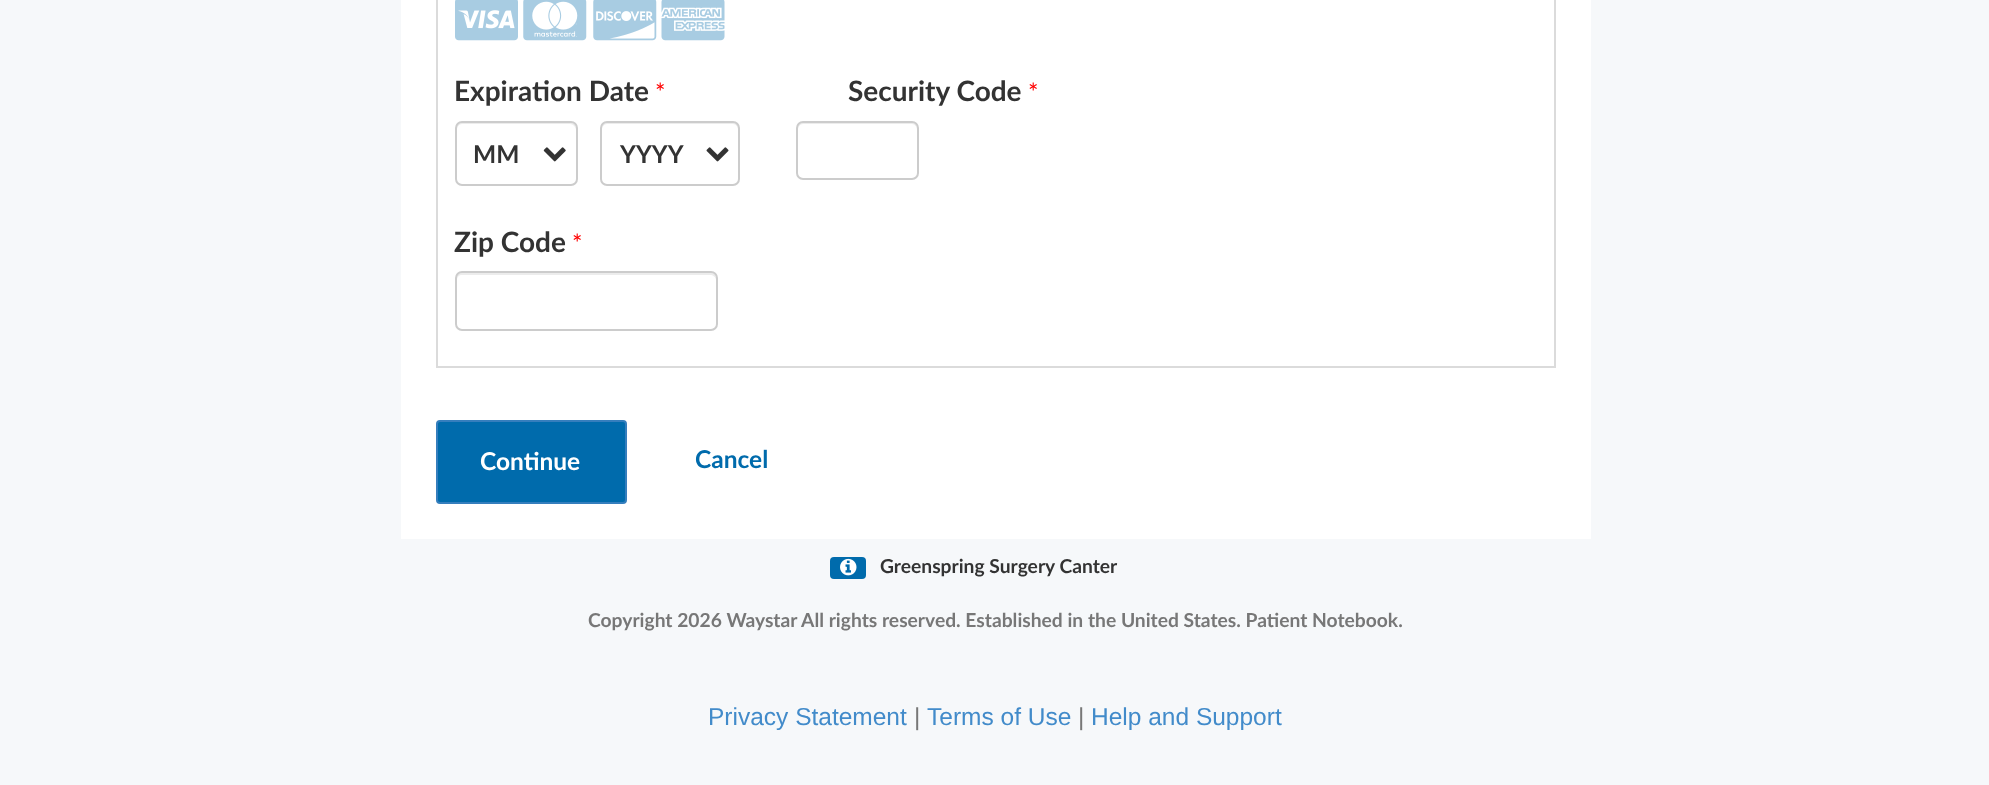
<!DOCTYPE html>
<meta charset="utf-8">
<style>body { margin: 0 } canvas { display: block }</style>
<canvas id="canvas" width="1989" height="785"></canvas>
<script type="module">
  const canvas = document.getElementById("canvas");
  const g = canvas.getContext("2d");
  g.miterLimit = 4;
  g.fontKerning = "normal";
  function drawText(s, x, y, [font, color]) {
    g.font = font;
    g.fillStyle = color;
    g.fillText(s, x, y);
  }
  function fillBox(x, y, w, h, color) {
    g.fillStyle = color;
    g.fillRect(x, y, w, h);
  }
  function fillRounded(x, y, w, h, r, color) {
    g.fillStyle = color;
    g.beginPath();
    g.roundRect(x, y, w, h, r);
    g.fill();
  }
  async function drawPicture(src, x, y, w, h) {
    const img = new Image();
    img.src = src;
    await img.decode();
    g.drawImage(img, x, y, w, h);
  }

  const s1 = ["bold 28px Lato", "#333333"];
  const s2 = ["24.5px Lato", "#FF0000"];
  const s3 = ["bold 24.5px Lato", "#333333"];
  const s4 = ["bold 24.5px Lato", "#FFFFFF"];
  const s5 = ["bold 24.5px Lato", "#006BAC"];
  const s6 = ["bold 19.25px Lato", "#333333"];
  const s7 = ["bold 19.25px Lato", "#777777"];
  const s8 = ["24.5px Liberation Sans", "#428BCA"];
  const s9 = ["24.5px Liberation Sans", "#777777"];

  fillBox(0, 0, 1989, 785, "#F6F8FA");
  fillBox(401, 0, 1190, 539, "#FFFFFF");
  fillBox(1554, 0, 2, 368, "#DBDBDB");
  fillBox(436, 366, 1120, 2, "#DBDBDB");
  fillBox(436, 0, 2, 368, "#DBDBDB");
  await drawPicture("pic1.png", 455, 0, 63, 41);
  await drawPicture("pic2.png", 523, 0, 64, 41);
  await drawPicture("pic3.png", 593, 0, 64, 41);
  await drawPicture("pic4.png", 661, 0, 64, 41);
  drawText("Expiration Date", 454, 101, s1);
  drawText("*", 655, 101, s2);
  g.fillStyle = "#ECECEC";
  g.beginPath();
  g.moveTo(462, 124);
  g.lineTo(570, 124);
  g.bezierCurveTo(573, 124, 576, 127, 576, 130);
  g.lineTo(576, 128);
  g.bezierCurveTo(576, 125, 574, 123, 571, 123);
  g.lineTo(462, 123);
  g.bezierCurveTo(459, 123, 457, 125, 457, 128);
  g.lineTo(457, 130);
  g.bezierCurveTo(457, 127, 459, 124, 462, 124);
  g.closePath();
  g.fill();
  g.beginPath();
  g.roundRect(456, 122, 121, 63, 6);
  g.strokeStyle = "#CCCCCC";
  g.lineWidth = 2;
  g.stroke();
  drawText("MM", 473, 163, s3);
  await drawPicture("pic5.png", 543, 147, 23, 15);
  g.fillStyle = "#ECECEC";
  g.beginPath();
  g.moveTo(607, 124);
  g.lineTo(733, 124);
  g.bezierCurveTo(736, 124, 738, 127, 738, 130);
  g.lineTo(738, 180);
  g.lineTo(738, 183);
  g.bezierCurveTo(738, 182, 739, 180, 739, 179);
  g.lineTo(739, 128);
  g.bezierCurveTo(739, 125, 737, 123, 734, 123);
  g.lineTo(607, 123);
  g.bezierCurveTo(604, 123, 602, 125, 602, 128);
  g.lineTo(602, 130);
  g.bezierCurveTo(602, 127, 604, 124, 607, 124);
  g.closePath();
  g.fill();
  g.beginPath();
  g.roundRect(601, 122, 138, 63, 6);
  g.stroke();
  drawText("YYYY", 620, 163, s3);
  await drawPicture("pic6.png", 706, 147, 23, 15);
  drawText("Security Code", 848, 101, s1);
  drawText("*", 1028, 101, s2);
  g.fillStyle = "#ECECEC";
  g.beginPath();
  g.moveTo(803, 124);
  g.lineTo(912, 124);
  g.bezierCurveTo(915, 124, 917, 127, 917, 130);
  g.lineTo(917, 128);
  g.bezierCurveTo(917, 125, 915, 123, 912, 123);
  g.lineTo(803, 123);
  g.bezierCurveTo(800, 123, 798, 125, 798, 128);
  g.lineTo(798, 130);
  g.bezierCurveTo(798, 127, 800, 124, 803, 124);
  g.closePath();
  g.fill();
  g.beginPath();
  g.roundRect(797, 122, 121, 57, 6);
  g.stroke();
  drawText("Zip Code", 454, 252, s1);
  drawText("*", 572, 252, s2);
  g.fillStyle = "#ECECEC";
  g.beginPath();
  g.moveTo(462, 275);
  g.lineTo(710, 275);
  g.bezierCurveTo(713, 275, 716, 277, 716, 280);
  g.lineTo(716, 278);
  g.bezierCurveTo(716, 275, 714, 273, 711, 273);
  g.lineTo(462, 273);
  g.bezierCurveTo(459, 273, 457, 275, 457, 278);
  g.lineTo(457, 280);
  g.bezierCurveTo(457, 277, 459, 275, 462, 275);
  g.closePath();
  g.fill();
  g.beginPath();
  g.roundRect(456, 272, 261, 58, 6);
  g.stroke();
  g.fillStyle = "#006BAC";
  g.beginPath();
  g.roundRect(437, 421, 189, 82, 3);
  g.fill();
  g.strokeStyle = "#357EBD";
  g.stroke();
  drawText("Continue", 480, 470, s4);
  drawText("Cancel", 695, 468, s5);
  fillRounded(830, 557, 36, 22, 4, "#006BAC");
  await drawPicture("pic7.png", 840, 558, 17, 18);
  drawText("Greenspring Surgery Canter", 880, 573, s6);
  drawText("Copyright 2026 Waystar All rights reserved. Established in the United States. Patient Notebook.", 588, 627, s7);
  drawText("Privacy Statement", 708, 725, s8);
  drawText("|", 914, 725, s9);
  drawText("Terms of Use", 927, 725, s8);
  drawText("|", 1078, 725, s9);
  drawText("Help and Support", 1091, 725, s8);
</script>
